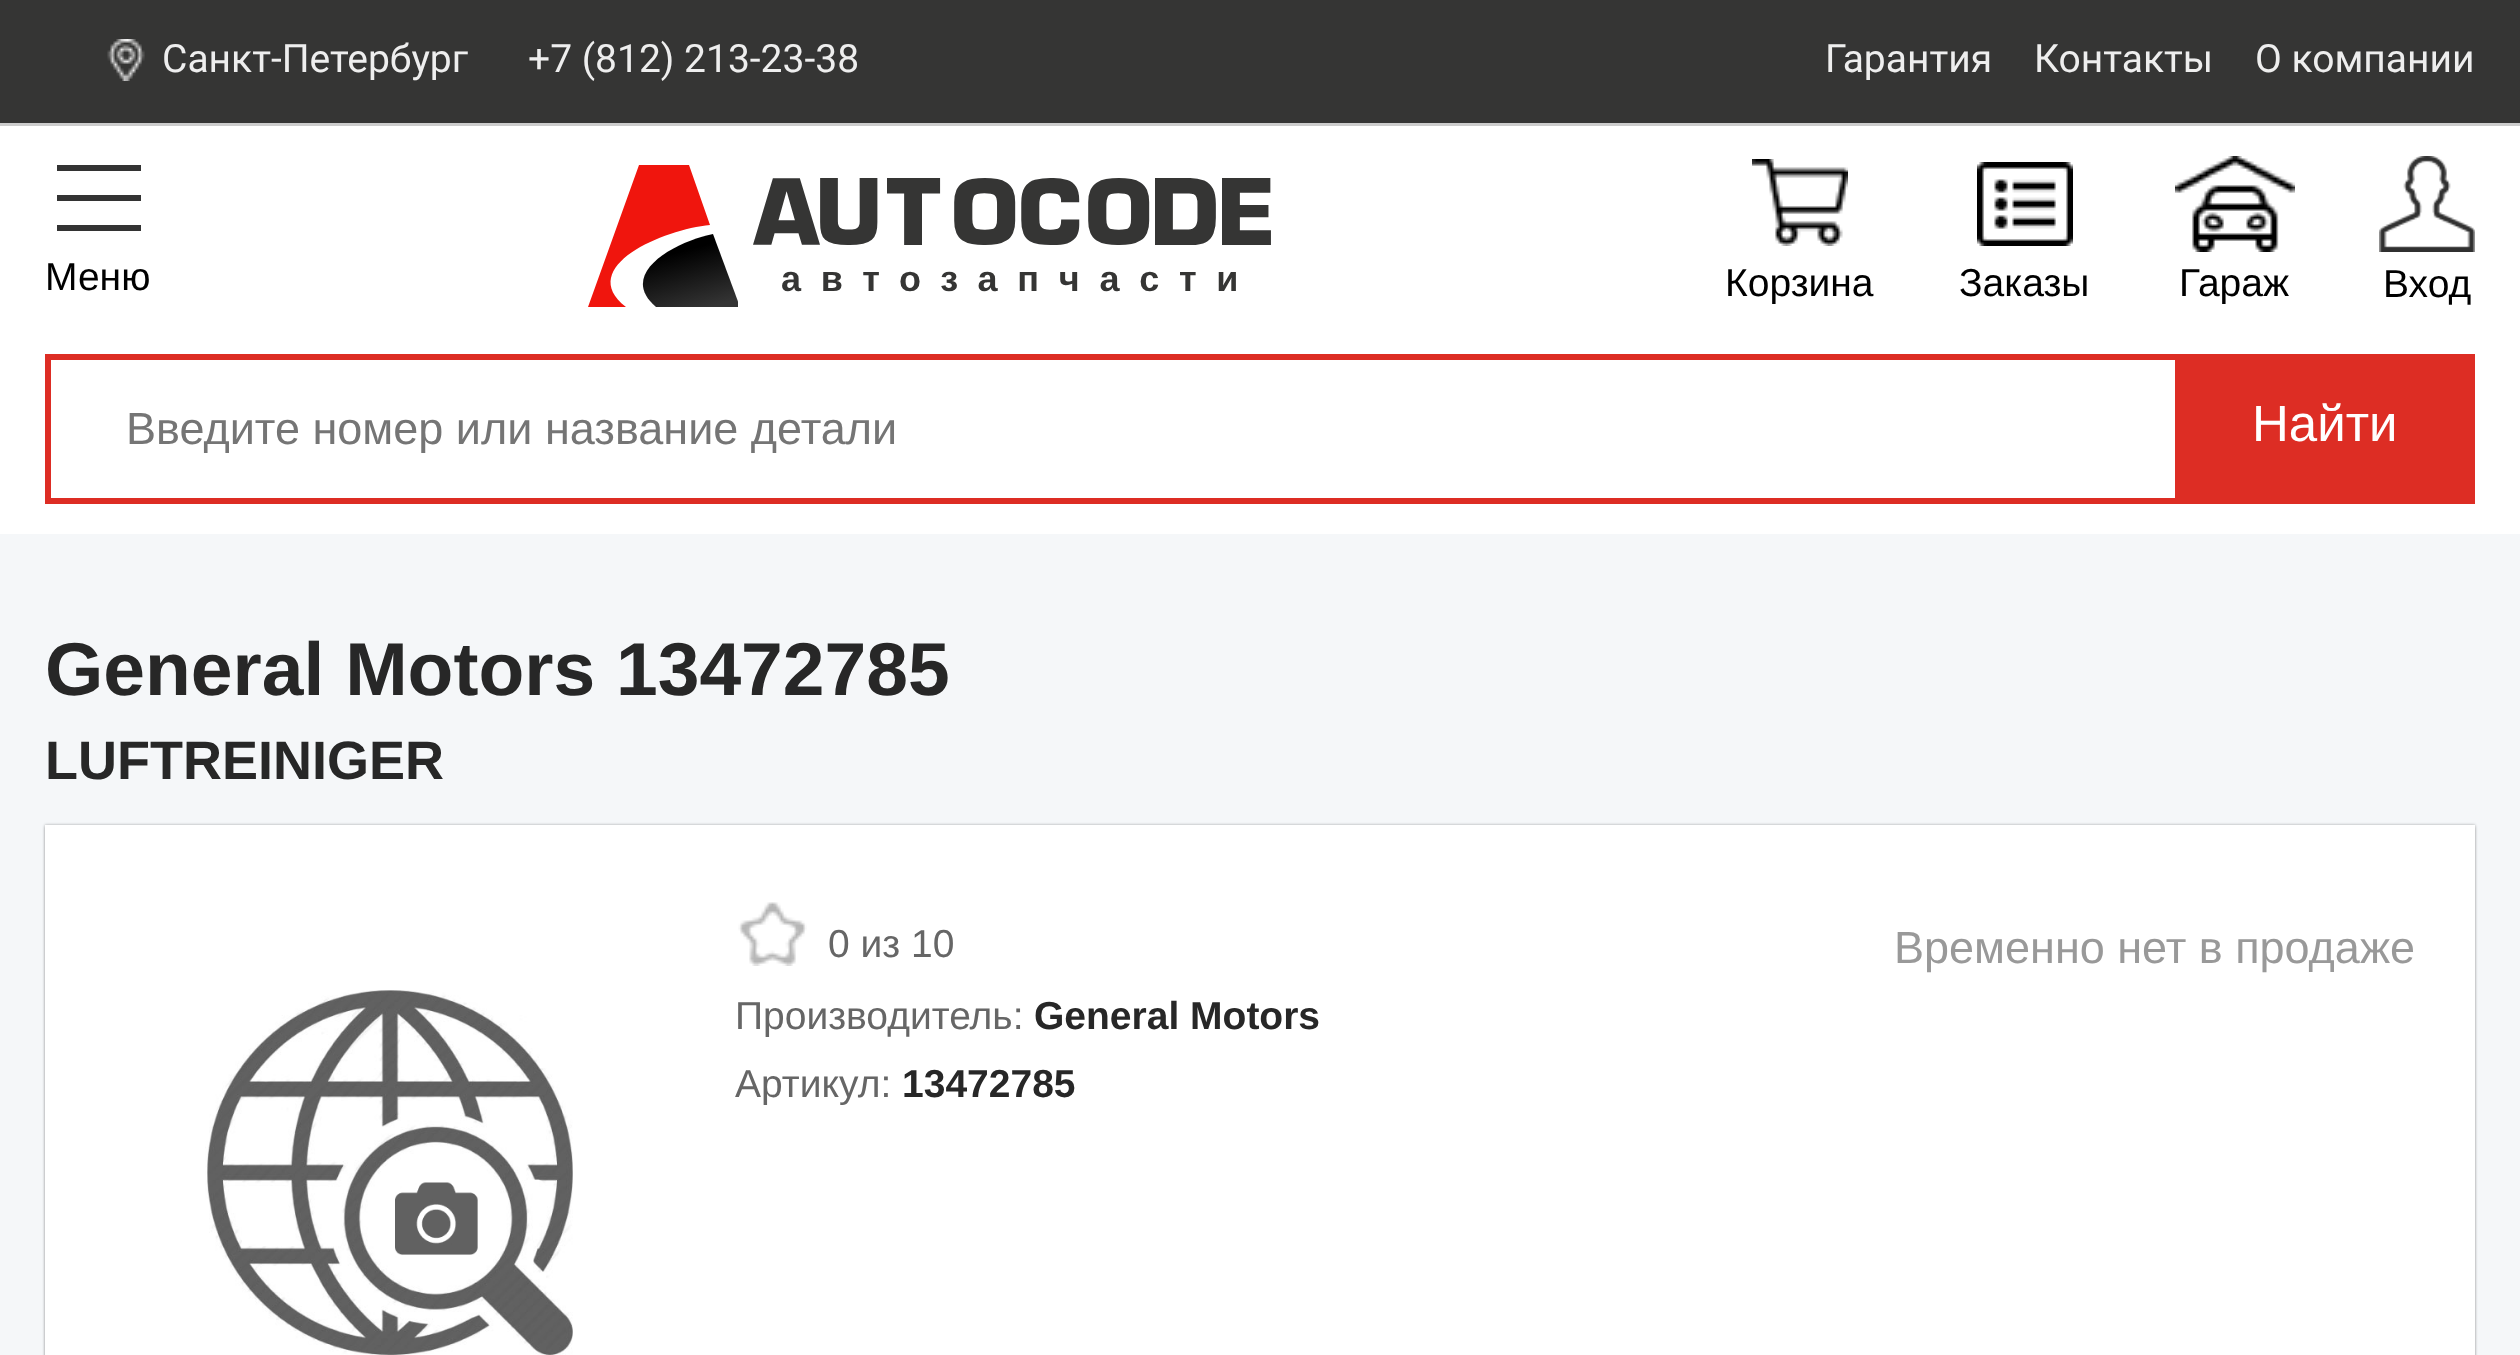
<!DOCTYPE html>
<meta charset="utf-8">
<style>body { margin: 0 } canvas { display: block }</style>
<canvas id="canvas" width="2520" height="1355"></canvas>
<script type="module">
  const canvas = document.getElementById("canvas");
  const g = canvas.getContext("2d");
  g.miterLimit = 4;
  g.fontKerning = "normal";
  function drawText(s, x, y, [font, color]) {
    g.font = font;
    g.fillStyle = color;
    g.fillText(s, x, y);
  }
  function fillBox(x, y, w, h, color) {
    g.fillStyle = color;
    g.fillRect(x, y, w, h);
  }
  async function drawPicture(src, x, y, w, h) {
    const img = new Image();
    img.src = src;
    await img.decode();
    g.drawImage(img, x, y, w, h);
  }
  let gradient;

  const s1 = ["39px Roboto", "#EEEEEE"];
  const s2 = ["39px Liberation Sans", "#000000"];
  const s3 = ["67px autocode", "#353534"];
  const s4 = ["bold 36px Liberation Sans", "#353534"];
  const s5 = ["45px Liberation Sans", "#757575"];
  const s6 = ["51px Liberation Sans", "#FFFFFF"];
  const s7 = ["bold 75px Liberation Sans", "#272727"];
  const s8 = ["bold 54px Liberation Sans", "#272727"];
  const s9 = ["39px Liberation Sans", "#666666"];
  const s10 = ["bold 39px Liberation Sans", "#272727"];
  const s11 = ["45px Liberation Sans", "#999999"];

  fillBox(0, 0, 2520, 1355, "#F5F7F9");
  fillBox(0, 0, 2520, 123, "#353534");
  fillBox(0, 123, 2520, 3, "#CCCCCC");
  await drawPicture("pic1.png", 107, 39, 38, 42);
  drawText("Санкт-Петербург", 162, 72, s1);
  drawText("+7 (812) 213-23-38", 528, 72, s1);
  drawText("Гарантия", 1825, 72, s1);
  drawText("Контакты", 2034, 72, s1);
  drawText("О компании", 2255, 72, s1);
  fillBox(0, 126, 2520, 408, "#FFFFFF");
  fillBox(57, 165, 84, 6, "#333333");
  fillBox(57, 195, 84, 6, "#333333");
  fillBox(57, 225, 84, 6, "#333333");
  drawText("Меню", 45, 290, s2);
  g.save();
  g.beginPath();
  g.rect(588, 165, 150, 150);
  g.clip();
  gradient = g.createLinearGradient(695, 311, 679, 252);
  gradient.addColorStop(0, "#343434");
  gradient.addColorStop(1, "#000000");
  g.fillStyle = gradient;
  g.beginPath();
  g.moveTo(713, 234);
  g.lineTo(740, 307);
  g.lineTo(656, 307);
  g.bezierCurveTo(616, 273, 677, 241, 713, 234);
  g.closePath();
  g.fill();
  g.restore();
  g.fillStyle = "#F0150D";
  g.beginPath();
  g.moveTo(639, 165);
  g.lineTo(689, 165);
  g.lineTo(710, 225);
  g.bezierCurveTo(664, 229, 575, 267, 626, 307);
  g.lineTo(588, 307);
  g.closePath();
  g.fill();
  drawText("AUTOCODE", 753, 245, s3);
  g.letterSpacing = "19.75px";
  drawText("автозапчасти", 781, 291, s4);
  await drawPicture("pic2.png", 1752, 159, 96, 87);
  g.letterSpacing = "0px";
  drawText("Корзина", 1725, 296, s2);
  await drawPicture("pic3.png", 1977, 162, 96, 84);
  drawText("Заказы", 1959, 296, s2);
  await drawPicture("pic4.png", 2175, 156, 120, 96);
  drawText("Гараж", 2179, 296, s2);
  await drawPicture("pic5.png", 2379, 156, 96, 96);
  drawText("Вход", 2383, 297, s2);
  g.strokeStyle = "#DD2D24";
  g.lineWidth = 6;
  g.strokeRect(48, 357, 2424, 144);
  g.save();
  g.beginPath();
  g.rect(126, 402, 1968, 51);
  g.clip();
  drawText("Введите номер или название детали", 126, 444, s5);
  g.restore();
  fillBox(2175, 360, 294, 138, "#DD2D24");
  drawText("Найти", 2252, 441, s6);
  drawText("General Motors 13472785", 45, 695, s7);
  drawText("LUFTREINIGER", 45, 779, s8);
  g.fillStyle = "rgba(0, 0, 0, 0.2)";
  g.filter = "blur(1.5px)";
  g.beginPath();
  g.rect(45, 825, 2430, 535);
  g.fill();
  g.filter = "none";
  g.fillStyle = "rgba(0, 0, 0, 0.12)";
  g.filter = "blur(1.5px)";
  g.beginPath();
  g.rect(45, 828, 2430, 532);
  g.fill();
  g.filter = "none";
  g.fillStyle = "rgba(0, 0, 0, 0.14)";
  g.filter = "blur(1.5px)";
  g.beginPath();
  g.rect(45, 825, 2430, 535);
  g.fill();
  g.filter = "none";
  fillBox(45, 825, 2430, 530, "#FFFFFF");
  await drawPicture("pic6.png", 738, 902, 69, 64);
  drawText("0 из 10", 828, 957, s9);
  drawText("Производитель:", 735, 1029, s9);
  drawText("General Motors", 1034, 1029, s10);
  drawText("Артикул:", 735, 1097, s9);
  drawText("13472785", 902, 1097, s10);
  drawText("Временно нет в продаже", 1894, 963, s11);
  await drawPicture("pic7.png", 205, 990, 368, 365);
</script>
